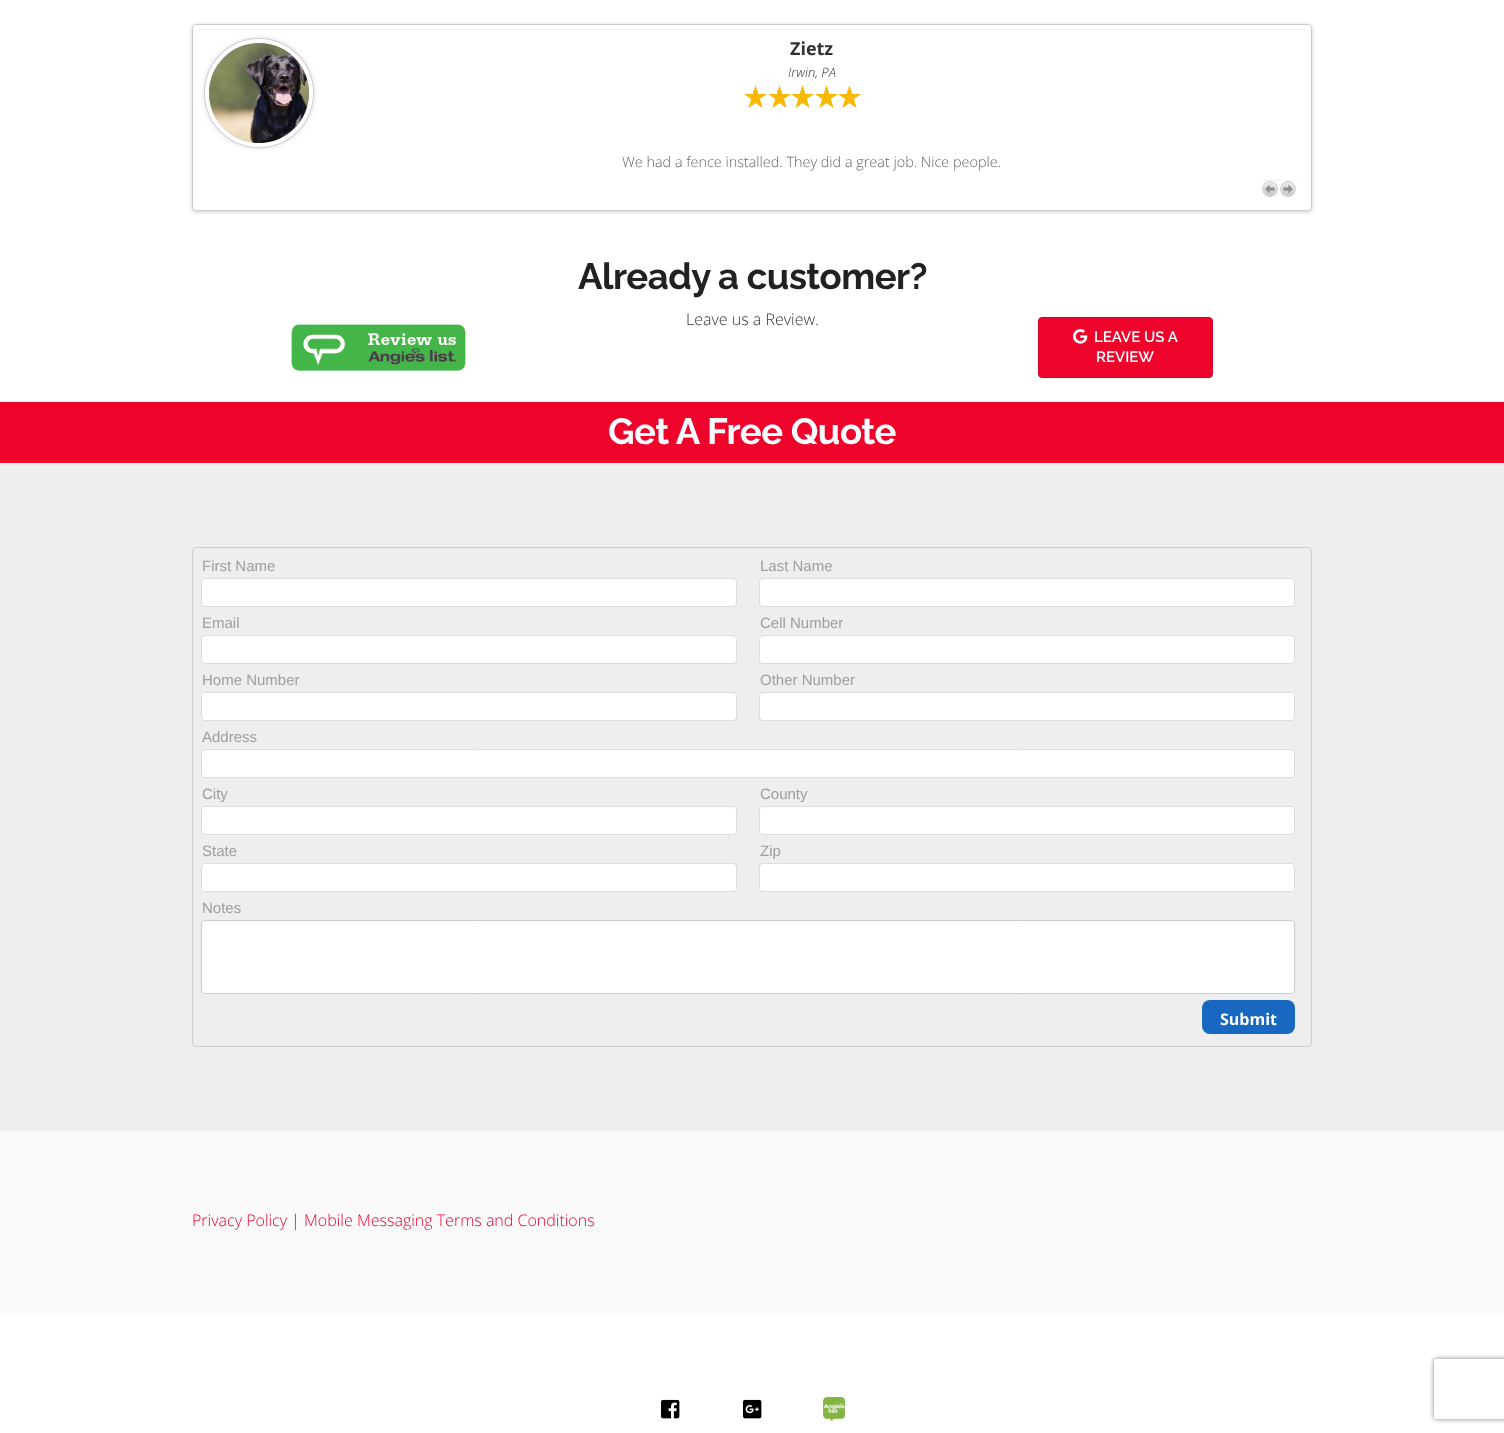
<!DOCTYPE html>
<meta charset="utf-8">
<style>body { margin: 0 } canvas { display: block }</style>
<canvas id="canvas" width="1504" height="1433"></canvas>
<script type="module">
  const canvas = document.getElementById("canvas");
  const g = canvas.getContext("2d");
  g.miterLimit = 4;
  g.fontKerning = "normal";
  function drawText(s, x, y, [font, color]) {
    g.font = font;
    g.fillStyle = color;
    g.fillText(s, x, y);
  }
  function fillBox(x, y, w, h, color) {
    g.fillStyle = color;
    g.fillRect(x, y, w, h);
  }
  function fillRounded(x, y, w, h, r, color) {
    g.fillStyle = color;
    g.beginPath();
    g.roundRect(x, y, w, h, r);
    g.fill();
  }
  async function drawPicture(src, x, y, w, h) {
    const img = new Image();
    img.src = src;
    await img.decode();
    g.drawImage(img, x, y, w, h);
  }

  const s1 = ["bold 18px Open Sans", "#333333"];
  const s2 = ["italic 300 13px Open Sans", "#333333"];
  const s3 = ["300 14.4px Open Sans", "#666666"];
  const s4 = ["bold 36.5px Raleway", "#212121"];
  const s5 = ["300 16px Open Sans", "#333333"];
  const s6 = ["600 15px Raleway", "#FFFFFF"];
  const s7 = ["bold 36.5px Raleway", "#FFFFFF"];
  const s8 = ["15px Liberation Sans", "#9E9E9E"];
  const s9 = ["bold 16px Open Sans", "#FFFFFF"];
  const s10 = ["300 16px Open Sans", "#EE032B"];

  fillBox(0, 0, 1504, 1433, "#FFFFFF");
  g.fillStyle = "rgba(0, 0, 0, 0.2)";
  g.filter = "blur(2px)";
  g.beginPath();
  g.roundRect(192, 25, 1120, 187, 4);
  g.fill();
  g.filter = "none";
  g.fillStyle = "#FFFFFF";
  g.beginPath();
  g.roundRect(192.5, 24.5, 1119, 186, 3.5);
  g.fill();
  g.strokeStyle = "#CCCCCC";
  g.stroke();
  fillBox(197, 29, 1110, 1, "#F2F2F2");
  g.fillStyle = "#555555";
  g.filter = "blur(4.5px)";
  g.beginPath();
  g.roundRect(209, 43, 100, 100, 50);
  g.fill();
  g.filter = "none";
  g.beginPath();
  g.arc(259, 93, 52.5, 0, Math.PI * 2);
  g.strokeStyle = "#D1D1D1";
  g.lineWidth = 5;
  g.stroke();
  g.beginPath();
  g.arc(259, 93, 52, 0, Math.PI * 2);
  g.strokeStyle = "#FFFFFF";
  g.lineWidth = 4;
  g.stroke();
  await drawPicture("pic1.png", 209, 43, 100, 100);
  drawText("Zietz", 790, 55, s1);
  drawText("Irwin, PA", 788, 77, s2);
  await drawPicture("pic2.png", 744, 86, 117, 22);
  drawText("We had a fence installed. They did a great job. Nice people.", 622, 167, s3);
  fillBox(1261, 180, 36, 1, "#F2F2F2");
  await drawPicture("pic3.png", 1262, 181, 16, 16);
  await drawPicture("pic4.png", 1280, 181, 16, 16);
  g.letterSpacing = "-0.5px";
  drawText("Already a customer?", 578, 289, s4);
  g.letterSpacing = "0px";
  drawText("Leave us a Review.", 686, 325, s5);
  await drawPicture("pic5.png", 291, 324, 175, 47);
  g.fillStyle = "#EE032B";
  g.beginPath();
  g.roundRect(1038.5, 317.5, 174, 60, 3.5);
  g.fill();
  g.strokeStyle = "#CC032B";
  g.lineWidth = 1;
  g.stroke();
  await drawPicture("pic6.png", 1073, 329, 15, 15);
  drawText("LEAVE US A", 1094, 342, s6);
  drawText("REVIEW", 1096, 362, s6);
  fillBox(0, 402, 1504, 61, "#EE032B");
  g.letterSpacing = "-0.5px";
  drawText("Get A Free Quote", 608, 444, s7);
  fillBox(0, 463, 1504, 668, "#EEEEEE");
  g.beginPath();
  g.roundRect(192.5, 547.5, 1119, 499, 3.5);
  g.strokeStyle = "#CCCCCC";
  g.stroke();
  g.letterSpacing = "0px";
  drawText("First Name", 202, 571, s8);
  g.fillStyle = "#FFFFFF";
  g.beginPath();
  g.roundRect(201.5, 578.5, 535, 28, 3.5);
  g.fill();
  g.strokeStyle = "#DDDDDD";
  g.stroke();
  drawText("Last Name", 760, 571, s8);
  g.fillStyle = "#FFFFFF";
  g.beginPath();
  g.roundRect(759.5, 578.5, 535, 28, 3.5);
  g.fill();
  g.stroke();
  drawText("Email", 202, 628, s8);
  g.fillStyle = "#FFFFFF";
  g.beginPath();
  g.roundRect(201.5, 635.5, 535, 28, 3.5);
  g.fill();
  g.stroke();
  drawText("Cell Number", 760, 628, s8);
  g.fillStyle = "#FFFFFF";
  g.beginPath();
  g.roundRect(759.5, 635.5, 535, 28, 3.5);
  g.fill();
  g.stroke();
  drawText("Home Number", 202, 685, s8);
  g.fillStyle = "#FFFFFF";
  g.beginPath();
  g.roundRect(201.5, 692.5, 535, 28, 3.5);
  g.fill();
  g.stroke();
  drawText("Other Number", 760, 685, s8);
  g.fillStyle = "#FFFFFF";
  g.beginPath();
  g.roundRect(759.5, 692.5, 535, 28, 3.5);
  g.fill();
  g.stroke();
  drawText("Address", 202, 742, s8);
  g.fillStyle = "#FFFFFF";
  g.beginPath();
  g.roundRect(201.5, 749.5, 1093, 28, 3.5);
  g.fill();
  g.stroke();
  drawText("City", 202, 799, s8);
  g.fillStyle = "#FFFFFF";
  g.beginPath();
  g.roundRect(201.5, 806.5, 535, 28, 3.5);
  g.fill();
  g.stroke();
  drawText("County", 760, 799, s8);
  g.fillStyle = "#FFFFFF";
  g.beginPath();
  g.roundRect(759.5, 806.5, 535, 28, 3.5);
  g.fill();
  g.stroke();
  drawText("State", 202, 856, s8);
  g.fillStyle = "#FFFFFF";
  g.beginPath();
  g.roundRect(201.5, 863.5, 535, 28, 3.5);
  g.fill();
  g.stroke();
  drawText("Zip", 760, 856, s8);
  g.fillStyle = "#FFFFFF";
  g.beginPath();
  g.roundRect(759.5, 863.5, 535, 28, 3.5);
  g.fill();
  g.stroke();
  drawText("Notes", 202, 913, s8);
  g.fillStyle = "#FFFFFF";
  g.beginPath();
  g.roundRect(201.5, 920.5, 1093, 73, 3.5);
  g.fill();
  g.strokeStyle = "#CCCCCC";
  g.stroke();
  fillRounded(1202, 1000, 93, 34, 8, "#1867C0");
  drawText("Submit", 1220, 1025, s9);
  fillBox(0, 1131, 1504, 182, "#F9F9F9");
  drawText("Privacy Policy", 192, 1226, s10);
  drawText("|", 291, 1226, s5);
  drawText("Mobile Messaging Terms and Conditions", 304, 1226, s10);
  await drawPicture("pic7.png", 661, 1399, 19, 20);
  await drawPicture("pic8.png", 743, 1399, 19, 20);
  await drawPicture("pic9.png", 823, 1397, 22, 24);
  g.save();
  g.beginPath();
  g.moveTo(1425, 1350);
  g.lineTo(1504, 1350);
  g.lineTo(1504, 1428);
  g.lineTo(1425, 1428);
  g.closePath();
  g.moveTo(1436, 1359);
  g.lineTo(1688, 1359);
  g.bezierCurveTo(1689, 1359, 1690, 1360, 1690, 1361);
  g.lineTo(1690, 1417);
  g.bezierCurveTo(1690, 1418, 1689, 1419, 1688, 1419);
  g.lineTo(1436, 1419);
  g.bezierCurveTo(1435, 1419, 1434, 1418, 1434, 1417);
  g.lineTo(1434, 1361);
  g.bezierCurveTo(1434, 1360, 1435, 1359, 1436, 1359);
  g.closePath();
  g.clip("evenodd");
  g.fillStyle = "#808080";
  g.filter = "blur(2.5px)";
  g.beginPath();
  g.roundRect(1434, 1359, 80, 60, 2);
  g.fill();
  g.filter = "none";
  g.restore();
</script>
